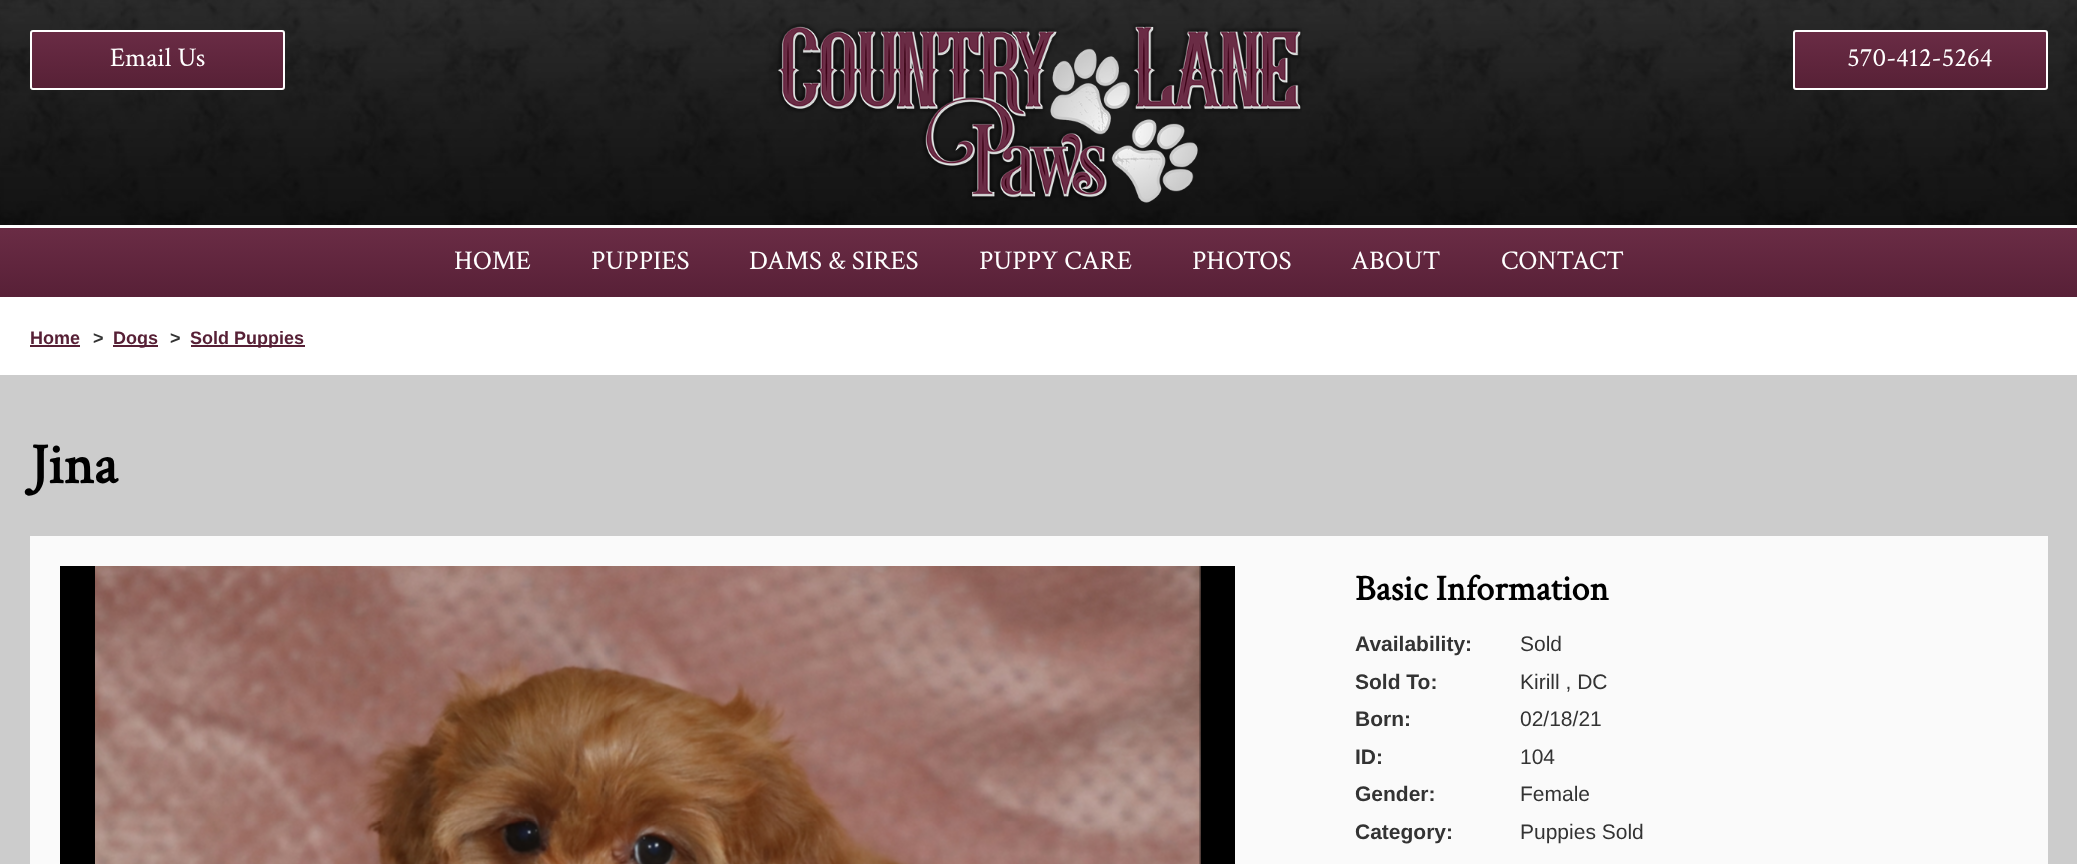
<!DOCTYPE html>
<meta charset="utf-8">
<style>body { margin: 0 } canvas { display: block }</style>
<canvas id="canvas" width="2077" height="864"></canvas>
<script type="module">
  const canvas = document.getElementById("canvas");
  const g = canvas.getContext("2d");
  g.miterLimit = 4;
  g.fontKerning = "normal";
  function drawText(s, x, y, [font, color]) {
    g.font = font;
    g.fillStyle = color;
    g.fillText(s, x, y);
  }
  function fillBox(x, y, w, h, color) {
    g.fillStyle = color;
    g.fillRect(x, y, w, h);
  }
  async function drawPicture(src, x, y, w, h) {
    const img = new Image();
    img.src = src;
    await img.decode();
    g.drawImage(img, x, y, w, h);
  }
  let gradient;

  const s1 = ["27px Crimson Text", "#FFFFFF"];
  const s2 = ["bold 18px Liberation Sans", "#572036"];
  const s3 = ["bold 18px Liberation Sans", "#333333"];
  const s4 = ["bold 57px Crimson Text", "#000000"];
  const s5 = ["bold 36px Crimson Text", "#000000"];
  const s6 = ["bold 21px Liberation Sans", "#333333"];
  const s7 = ["21px Liberation Sans", "#333333"];

  fillBox(0, 0, 2077, 864, "#CCCCCC");
  await drawPicture("pic1.png", 0, 0, 2077, 225);
  g.save();
  g.beginPath();
  g.roundRect(30, 30, 255, 60, 3);
  g.clip();
  gradient = g.createLinearGradient(158, 31, 158, 89);
  gradient.addColorStop(0, "#6A2C45");
  gradient.addColorStop(1, "#572036");
  g.fillStyle = gradient;
  g.fillRect(30, 32, 255, 57);
  g.restore();
  g.beginPath();
  g.roundRect(31, 31, 253, 58, 2);
  g.strokeStyle = "#FFFFFF";
  g.lineWidth = 2;
  g.stroke();
  drawText("Email Us", 110, 66, s1);
  await drawPicture("pic2.png", 777, 23, 525, 180);
  g.save();
  g.beginPath();
  g.roundRect(1793, 30, 255, 60, 3);
  g.clip();
  gradient = g.createLinearGradient(1920, 31, 1920, 89);
  gradient.addColorStop(0, "#6A2C45");
  gradient.addColorStop(1, "#572036");
  g.fillStyle = gradient;
  g.fillRect(1793, 32, 255, 57);
  g.restore();
  g.beginPath();
  g.roundRect(1794, 31, 253, 58, 2);
  g.stroke();
  drawText("570-412-5264", 1847, 66, s1);
  gradient = g.createLinearGradient(1039, 228, 1039, 297);
  gradient.addColorStop(0, "#6A2C45");
  gradient.addColorStop(1, "#582037");
  g.fillStyle = gradient;
  g.fillRect(0, 228, 2077, 69);
  fillBox(0, 225, 2077, 3, "#FFFFFF");
  drawText("HOME", 454, 269, s1);
  drawText("PUPPIES", 591, 269, s1);
  drawText("DAMS & SIRES", 749, 269, s1);
  drawText("PUPPY CARE", 979, 269, s1);
  drawText("PHOTOS", 1192, 269, s1);
  drawText("ABOUT", 1351, 269, s1);
  drawText("CONTACT", 1501, 269, s1);
  fillBox(0, 297, 2077, 78, "#FFFFFF");
  drawText("Home", 30, 344, s2);
  fillBox(30, 345, 50, 2, "#572036");
  drawText(">", 93, 344, s3);
  fillBox(113, 345, 45, 2, "#572036");
  drawText("Dogs", 113, 344, s2);
  drawText(">", 170, 344, s3);
  fillBox(191, 345, 114, 2, "#572036");
  drawText("Sold Puppies", 190, 344, s2);
  drawText("Jina", 30, 483, s4);
  fillBox(30, 536, 2018, 328, "#FAFAFA");
  fillBox(60, 566, 1175, 298, "#000000");
  await drawPicture("pic3.png", 95, 566, 1106, 298);
  drawText("Basic Information", 1355, 600, s5);
  drawText("Availability:", 1355, 651, s6);
  drawText("Sold", 1520, 651, s7);
  drawText("Sold To:", 1355, 689, s6);
  drawText("Kirill , DC", 1520, 689, s7);
  drawText("Born:", 1355, 726, s6);
  drawText("02/18/21", 1520, 726, s7);
  drawText("ID:", 1355, 764, s6);
  drawText("104", 1520, 764, s7);
  drawText("Gender:", 1355, 801, s6);
  drawText("Female", 1520, 801, s7);
  drawText("Category:", 1355, 839, s6);
  drawText("Puppies Sold", 1520, 839, s7);
</script>
